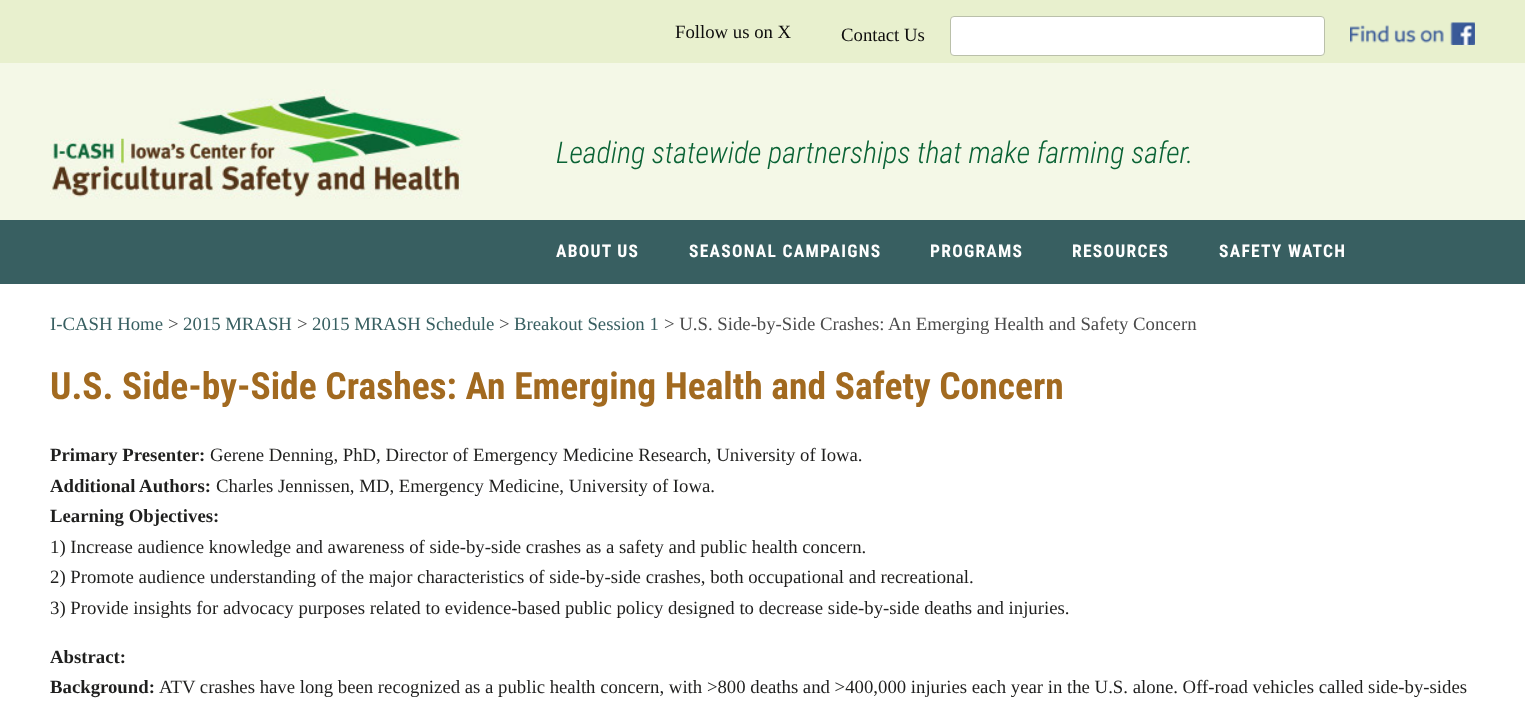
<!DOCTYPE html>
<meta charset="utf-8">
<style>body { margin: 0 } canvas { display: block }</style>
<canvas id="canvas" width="1525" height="719"></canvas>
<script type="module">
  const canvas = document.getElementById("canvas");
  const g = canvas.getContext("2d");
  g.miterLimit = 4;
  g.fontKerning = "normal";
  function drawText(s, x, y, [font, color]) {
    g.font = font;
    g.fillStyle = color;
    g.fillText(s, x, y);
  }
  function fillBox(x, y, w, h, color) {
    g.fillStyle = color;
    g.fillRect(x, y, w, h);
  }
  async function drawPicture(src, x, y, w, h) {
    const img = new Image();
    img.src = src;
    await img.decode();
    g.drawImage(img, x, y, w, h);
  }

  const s1 = ["18.75px Liberation Serif", "#0E0D0D"];
  const s2 = ["italic 300 30px Roboto Condensed", "#0A6335"];
  const s3 = ["bold 17.5px Roboto Condensed", "#FFFFFF"];
  const s4 = ["18.75px Liberation Serif", "#385F61"];
  const s5 = ["18.75px Liberation Serif", "#4B4B4B"];
  const s6 = ["bold 37.5px Roboto Condensed", "#A26A20"];
  const s7 = ["bold 18.75px Liberation Serif", "#1F1F1E"];
  const s8 = ["18.75px Liberation Serif", "#1F1F1E"];

  fillBox(0, 0, 1525, 719, "#FFFFFF");
  fillBox(0, 0, 1525, 63, "#E8F0CE");
  drawText("Follow us on X", 675, 38, s1);
  drawText("Contact Us", 841, 41, s1);
  g.fillStyle = "#FFFFFF";
  g.beginPath();
  g.roundRect(950.5, 16.5, 374, 39, 3.5);
  g.fill();
  g.strokeStyle = "#BAC0AA";
  g.stroke();
  await drawPicture("pic1.png", 1350, 22, 125, 23);
  fillBox(0, 63, 1525, 157, "#F4F8E7");
  await drawPicture("pic2.png", 50, 89, 413, 110);
  drawText("Leading statewide partnerships that make farming safer.", 556, 163, s2);
  fillBox(0, 220, 1525, 64, "#385F61");
  g.letterSpacing = "1.25px";
  drawText("ABOUT US", 556, 257, s3);
  drawText("SEASONAL CAMPAIGNS", 689, 257, s3);
  drawText("PROGRAMS", 930, 257, s3);
  drawText("RESOURCES", 1072, 257, s3);
  drawText("SAFETY WATCH", 1219, 257, s3);
  g.letterSpacing = "0px";
  drawText("I-CASH Home", 50, 330, s4);
  drawText(">", 168, 330, s5);
  drawText("2015 MRASH", 183, 330, s4);
  drawText(">", 297, 330, s5);
  drawText("2015 MRASH Schedule", 312, 330, s4);
  drawText(">", 499, 330, s5);
  drawText("Breakout Session 1", 514, 330, s4);
  drawText("> U.S. Side-by-Side Crashes: An Emerging Health and Safety Concern", 664, 330, s5);
  drawText("U.S. Side-by-Side Crashes: An Emerging Health and Safety Concern", 50, 399, s6);
  drawText("Primary Presenter:", 50, 461, s7);
  drawText("Gerene Denning, PhD, Director of Emergency Medicine Research, University of Iowa.", 210, 461, s8);
  drawText("Additional Authors:", 50, 492, s7);
  drawText("Charles Jennissen, MD, Emergency Medicine, University of Iowa.", 216, 492, s8);
  drawText("Learning Objectives:", 50, 522, s7);
  drawText("1) Increase audience knowledge and awareness of side-by-side crashes as a safety and public health concern.", 50, 553, s8);
  drawText("2) Promote audience understanding of the major characteristics of side-by-side crashes, both occupational and recreational.", 50, 583, s8);
  drawText("3) Provide insights for advocacy purposes related to evidence-based public policy designed to decrease side-by-side deaths and injuries.", 50, 614, s8);
  drawText("Abstract:", 50, 663, s7);
  drawText("Background:", 50, 693, s7);
  drawText("ATV crashes have long been recognized as a public health concern, with >800 deaths and >400,000 injuries each year in the U.S. alone. Off-road vehicles called side-by-sides", 159, 693, s8);
</script>
